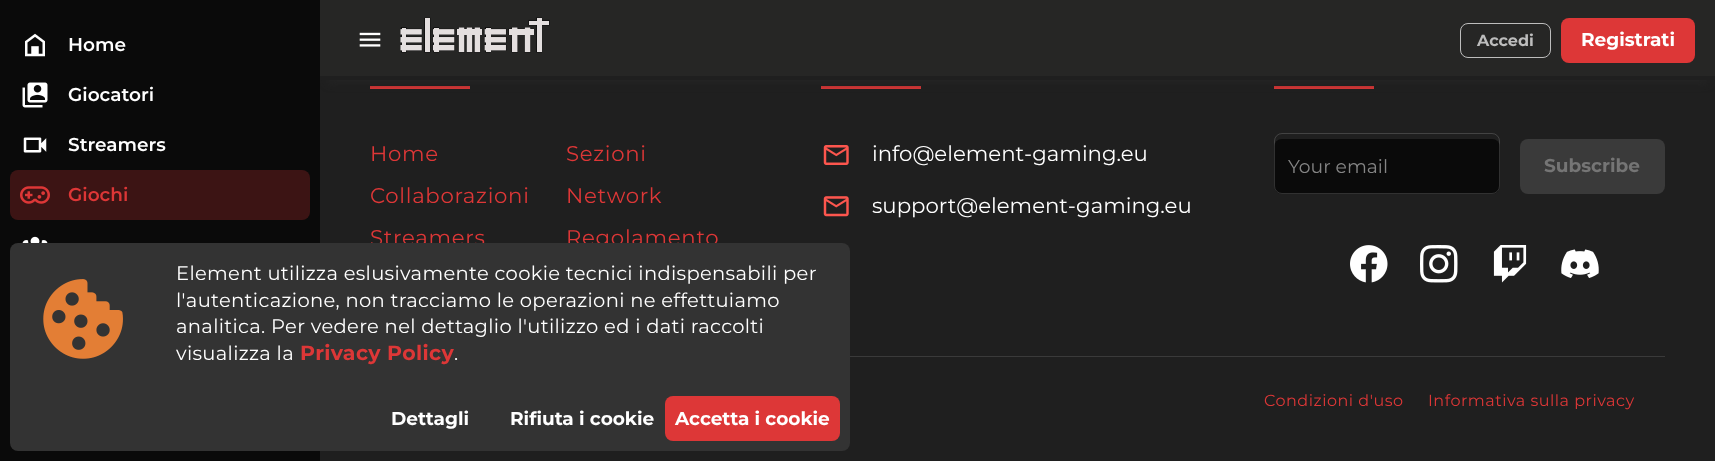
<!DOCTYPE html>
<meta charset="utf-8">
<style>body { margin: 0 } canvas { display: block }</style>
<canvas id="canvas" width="1715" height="461"></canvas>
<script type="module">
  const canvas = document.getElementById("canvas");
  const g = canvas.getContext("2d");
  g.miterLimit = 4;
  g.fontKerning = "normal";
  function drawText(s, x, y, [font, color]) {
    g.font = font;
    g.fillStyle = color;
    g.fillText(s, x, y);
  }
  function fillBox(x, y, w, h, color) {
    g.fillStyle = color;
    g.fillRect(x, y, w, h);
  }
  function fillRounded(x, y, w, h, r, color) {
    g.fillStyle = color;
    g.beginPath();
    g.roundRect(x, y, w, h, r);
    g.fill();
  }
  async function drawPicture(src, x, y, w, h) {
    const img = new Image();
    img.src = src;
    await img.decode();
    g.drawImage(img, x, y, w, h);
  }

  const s1 = ["600 18.5px Montserrat", "#FFFFFF"];
  const s2 = ["600 18.5px Montserrat", "#DD3737"];
  const s3 = ["bold 16px Montserrat", "#BDBDBD"];
  const s4 = ["bold 18.5px Montserrat", "#FFFFFF"];
  const s5 = ["21.25px Montserrat", "#DD3737"];
  const s6 = ["21.25px Montserrat", "#FFFFFF"];
  const s7 = ["18.75px Montserrat", "#858585"];
  const s8 = ["bold 18.5px Montserrat", "#757575"];
  const s9 = ["16px Montserrat", "#DD3737"];
  const s10 = ["19.5px Montserrat", "#FFFFFF"];
  const s11 = ["bold 20.5px Montserrat", "#DD3737"];

  fillBox(0, 0, 1715, 461, "#1F1F1F");
  fillBox(370, 86, 100, 3, "#DD3737");
  fillBox(821, 86, 100, 3, "#DD3737");
  fillBox(1274, 86, 100, 3, "#DD3737");
  g.fillStyle = "rgba(38, 38, 37, 0.8)";
  g.filter = "blur(4px)";
  g.beginPath();
  g.rect(328, 18, 1380, 65);
  g.fill();
  g.filter = "none";
  fillBox(0, 0, 320, 461, "#0A0A0A");
  await drawPicture("pic1.png", 25, 33, 20, 24);
  drawText("Home", 68, 51, s1);
  await drawPicture("pic2.png", 22, 82, 26, 26);
  drawText("Giocatori", 68, 101, s1);
  await drawPicture("pic3.png", 23, 137, 24, 16);
  drawText("Streamers", 68, 151, s1);
  drawText("Giochi", 68, 201, s2);
  fillRounded(10, 170, 300, 50, 8, "rgba(221, 55, 55, 0.24)");
  await drawPicture("pic4.png", 20, 186, 30, 18);
  await drawPicture("pic5.png", 22, 236, 26, 7);
  fillBox(320, 0, 1395, 76, "#262625");
  fillBox(320, 76, 1395, 4, "#1F1F1F");
  await drawPicture("pic6.png", 359, 32, 22, 15);
  await drawPicture("pic7.png", 400, 17, 150, 36);
  g.beginPath();
  g.roundRect(1460.5, 23.5, 90, 34, 7.5);
  g.strokeStyle = "#BDBDBD";
  g.stroke();
  drawText("Accedi", 1477, 46, s3);
  fillRounded(1561, 18, 134, 45, 8, "#DD3737");
  drawText("Registrati", 1581, 46, s4);
  g.letterSpacing = "0.7px";
  drawText("Home", 370, 161, s5);
  drawText("Sezioni", 566, 161, s5);
  drawText("Collaborazioni", 370, 203, s5);
  drawText("Network", 566, 203, s5);
  drawText("Streamers", 370, 245, s5);
  drawText("Regolamento", 566, 245, s5);
  await drawPicture("pic8.png", 823, 145, 26, 20);
  g.letterSpacing = "0px";
  drawText("info@element-gaming.eu", 872, 161, s6);
  await drawPicture("pic9.png", 823, 196, 26, 21);
  drawText("support@element-gaming.eu", 872, 213, s6);
  fillRounded(1274, 139, 226, 55, 8, "#0A0A0A");
  g.beginPath();
  g.roundRect(1274.5, 133.5, 225, 60, 7.5);
  g.strokeStyle = "rgba(255, 255, 255, 0.16)";
  g.stroke();
  drawText("Your email", 1288, 173, s7);
  fillRounded(1520, 139, 145, 55, 8, "#3A3A3A");
  drawText("Subscribe", 1544, 172, s8);
  await drawPicture("pic10.png", 1350, 245, 38, 38);
  await drawPicture("pic11.png", 1420, 245, 38, 38);
  await drawPicture("pic12.png", 1493, 245, 34, 38);
  await drawPicture("pic13.png", 1561, 249, 38, 29);
  fillBox(850, 356, 815, 1, "#3A3A3A");
  g.letterSpacing = "0.5px";
  drawText("Condizioni d'uso", 1264, 406, s9);
  drawText("Informativa sulla privacy", 1428, 406, s9);
  fillRounded(10, 243, 840, 208, 8, "#333333");
  await drawPicture("pic14.png", 43, 279, 80, 80);
  g.letterSpacing = "0.33px";
  drawText("Element utilizza eslusivamente cookie tecnici indispensabili per", 176, 280, s10);
  drawText("l'autenticazione, non tracciamo le operazioni ne effettuiamo", 176, 307, s10);
  drawText("analitica. Per vedere nel dettaglio l'utilizzo ed i dati raccolti", 176, 333, s10);
  drawText("visualizza la", 176, 360, s10);
  drawText("Privacy Policy", 300, 360, s11);
  drawText(".", 454, 360, s10);
  g.letterSpacing = "0px";
  drawText("Dettagli", 391, 425, s4);
  drawText("Rifiuta i cookie", 510, 425, s4);
  fillRounded(665, 396, 175, 45, 8, "#DD3737");
  drawText("Accetta i cookie", 675, 425, s4);
</script>
